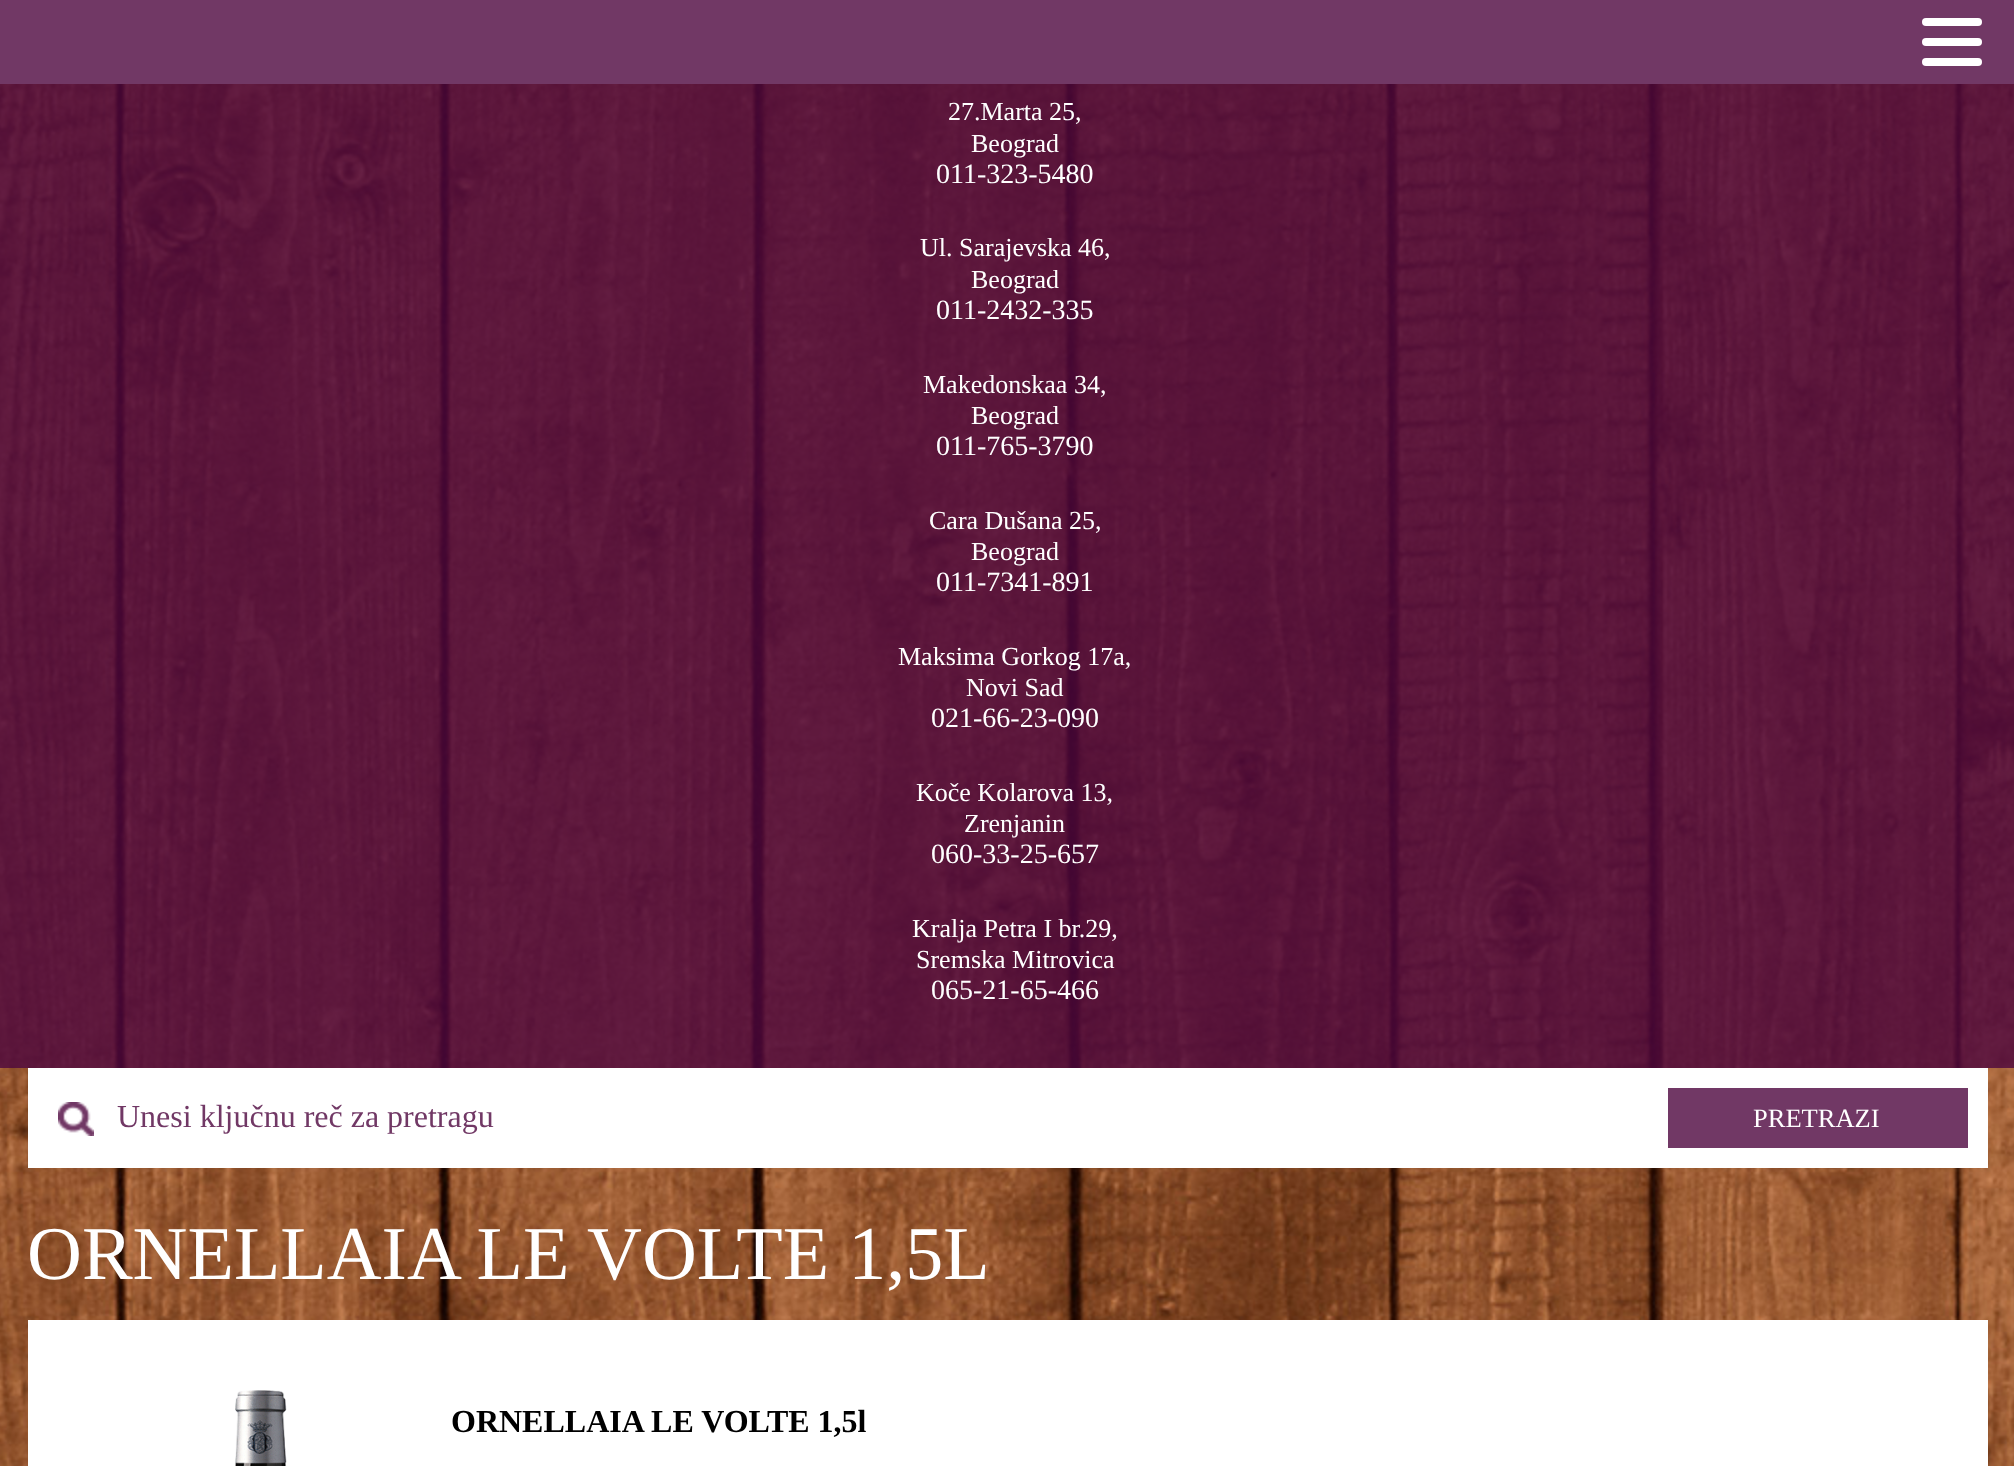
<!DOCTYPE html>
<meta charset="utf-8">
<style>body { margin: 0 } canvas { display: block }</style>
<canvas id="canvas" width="2014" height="1466"></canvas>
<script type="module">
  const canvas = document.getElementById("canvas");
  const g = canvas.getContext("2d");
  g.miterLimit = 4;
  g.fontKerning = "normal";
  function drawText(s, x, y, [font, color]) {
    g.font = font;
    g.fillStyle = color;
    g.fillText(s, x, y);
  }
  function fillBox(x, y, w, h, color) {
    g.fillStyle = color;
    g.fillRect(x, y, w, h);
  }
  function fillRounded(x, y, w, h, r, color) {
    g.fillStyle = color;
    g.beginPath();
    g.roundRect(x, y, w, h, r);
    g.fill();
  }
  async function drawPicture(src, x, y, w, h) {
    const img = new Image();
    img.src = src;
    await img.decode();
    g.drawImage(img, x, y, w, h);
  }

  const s1 = ["26px Liberation Serif", "#FFFFFF"];
  const s2 = ["28px Liberation Serif", "#FFFFFF"];
  const s3 = ["32px Liberation Serif", "#713865"];
  const s4 = ["26.5px Liberation Serif", "#FFFFFF"];
  const s5 = ["76px Liberation Serif", "#FFFFFF"];
  const s6 = ["bold 32px Liberation Serif", "#000000"];

  fillBox(0, 0, 2014, 1466, "#FFFFFF");
  await drawPicture("pic1.png", 0, 84, 2014, 1382);
  fillBox(0, 0, 2014, 84, "#713865");
  fillRounded(1922, 18, 60, 8, 4, "#FFFFFF");
  fillRounded(1922, 38, 60, 8, 4, "#FFFFFF");
  fillRounded(1922, 58, 60, 8, 4, "#FFFFFF");
  fillBox(0, 84, 2014, 984, "rgba(77, 6, 62, 0.8)");
  drawText("27.Marta 25,", 948, 120, s1);
  drawText("Beograd", 971, 152, s1);
  drawText("011-323-5480", 936, 183, s2);
  drawText("Ul. Sarajevska 46,", 920, 256, s1);
  drawText("Beograd", 971, 288, s1);
  drawText("011-2432-335", 936, 319, s2);
  drawText("Makedonskaa 34,", 923, 393, s1);
  drawText("Beograd", 971, 424, s1);
  drawText("011-765-3790", 936, 455, s2);
  drawText("Cara Dušana 25,", 929, 529, s1);
  drawText("Beograd", 971, 560, s1);
  drawText("011-7341-891", 936, 591, s2);
  drawText("Maksima Gorkog 17a,", 898, 665, s1);
  drawText("Novi Sad", 966, 696, s1);
  drawText("021-66-23-090", 931, 727, s2);
  drawText("Koče Kolarova 13,", 916, 801, s1);
  drawText("Zrenjanin", 964, 832, s1);
  drawText("060-33-25-657", 931, 863, s2);
  drawText("Kralja Petra I br.29,", 912, 937, s1);
  drawText("Sremska Mitrovica", 916, 968, s1);
  drawText("065-21-65-466", 931, 999, s2);
  fillBox(28, 1068, 1960, 100, "#FFFFFF");
  await drawPicture("pic2.png", 58, 1102, 36, 34);
  drawText("Unesi ključnu reč za pretragu", 117, 1127, s3);
  fillBox(1668, 1088, 300, 60, "#713865");
  drawText("PRETRAZI", 1753, 1127, s4);
  drawText("ORNELLAIA LE VOLTE 1,5L", 27, 1279, s5);
  fillBox(28, 1320, 1960, 146, "#FFFFFF");
  await drawPicture("pic3.png", 235, 1390, 52, 76);
  drawText("ORNELLAIA LE VOLTE 1,5l", 451, 1432, s6);
</script>
